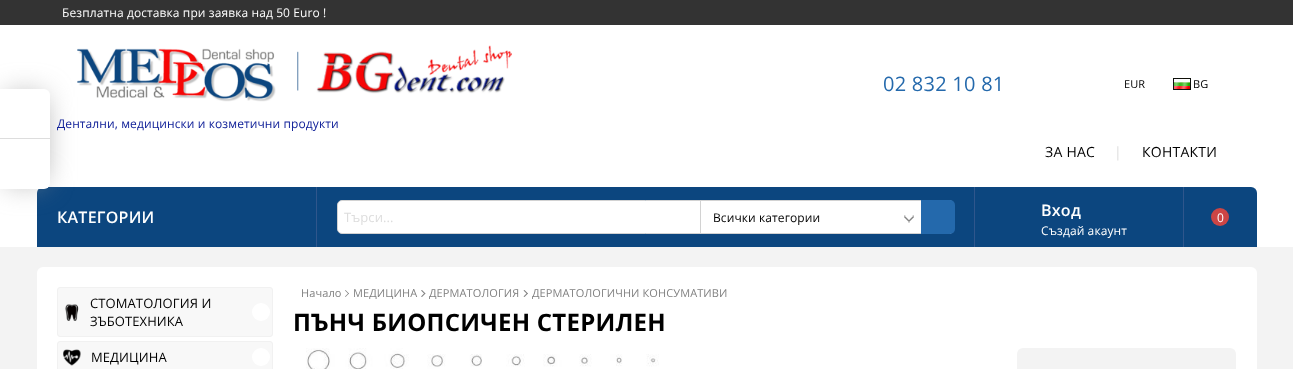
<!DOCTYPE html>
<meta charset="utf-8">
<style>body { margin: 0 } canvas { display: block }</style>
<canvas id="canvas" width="1293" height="369"></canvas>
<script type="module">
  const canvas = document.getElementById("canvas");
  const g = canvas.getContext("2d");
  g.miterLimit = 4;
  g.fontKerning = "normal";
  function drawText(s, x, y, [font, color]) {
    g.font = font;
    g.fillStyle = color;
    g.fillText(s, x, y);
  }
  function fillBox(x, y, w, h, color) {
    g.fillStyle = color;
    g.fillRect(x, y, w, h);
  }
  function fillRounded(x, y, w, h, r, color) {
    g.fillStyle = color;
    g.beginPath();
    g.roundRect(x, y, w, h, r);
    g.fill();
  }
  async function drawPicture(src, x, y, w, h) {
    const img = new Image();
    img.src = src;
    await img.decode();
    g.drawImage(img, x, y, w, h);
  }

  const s1 = ["12px Open Sans", "#FFFFFF"];
  const s2 = ["20px Open Sans", "#2469AC"];
  const s3 = ["11px Open Sans", "#000000"];
  const s4 = ["12px Open Sans", "#112199"];
  const s5 = ["14px Open Sans", "#000000"];
  const s6 = ["14px Open Sans", "#DDDDDD"];
  const s7 = ["600 16px Open Sans", "#FFFFFF"];
  const s8 = ["13px Open Sans", "#DDDDDD"];
  const s9 = ["12px Open Sans", "#000000"];
  const s10 = ["13px Open Sans", "#000000"];
  const s11 = ["11px Open Sans", "#808080"];
  const s12 = ["bold 24px Open Sans", "#000000"];

  fillBox(0, 0, 1293, 369, "#F3F3F3");
  fillBox(0, 25, 1293, 222, "#FFFFFF");
  fillBox(0, 0, 1293, 25, "#333333");
  g.letterSpacing = "0.1px";
  drawText("Безплатна доставка при заявка над 50 Euro !", 62, 17, s1);
  await drawPicture("pic2.png", 77, 45, 435, 57);
  g.fillStyle = "#0C467F";
  g.beginPath();
  g.roundRect(37, 187, 1220, 60, [6, 6, 0, 0]);
  g.fill();
  g.fillStyle = "#999999";
  g.filter = "blur(15px)";
  g.beginPath();
  g.rect(8, 97, 34, 84);
  g.fill();
  g.filter = "none";
  g.fillStyle = "#FFFFFF";
  g.beginPath();
  g.roundRect(0, 89, 50, 100, [0, 6, 6, 0]);
  g.fill();
  fillBox(0, 138, 50, 1, "#DDDDDD");
  g.letterSpacing = "0.25px";
  drawText("02 832 10 81", 883, 91, s2);
  g.letterSpacing = "0.1px";
  drawText("EUR", 1124, 88, s3);
  await drawPicture("pic1.png", 1173, 78, 18, 12);
  drawText("BG", 1193, 88, s3);
  drawText("Дентални, медицински и козметични продукти", 57, 128, s4);
  g.letterSpacing = "0.25px";
  drawText("ЗА НАС", 1045, 157, s5);
  drawText("|", 1114, 157, s6);
  drawText("КОНТАКТИ", 1142, 157, s5);
  fillBox(316, 187, 1, 60, "#2F568C");
  drawText("КАТЕГОРИИ", 57, 223, s7);
  fillBox(974, 187, 1, 60, "#2F568C");
  g.fillStyle = "#FFFFFF";
  g.beginPath();
  g.roundRect(337.5, 200.5, 616, 33, 4.5);
  g.fill();
  g.strokeStyle = "#D2D2D2";
  g.stroke();
  g.letterSpacing = "0.1px";
  drawText("Търси...", 344, 222, s8);
  await drawPicture("pic3.png", 904, 215, 10, 8);
  fillBox(700, 200, 1, 34, "#D2D2D2");
  drawText("Всички категории", 713, 222, s9);
  g.fillStyle = "#2469AC";
  g.beginPath();
  g.roundRect(921, 200, 34, 34, [0, 5, 5, 0]);
  g.fill();
  g.letterSpacing = "0.25px";
  drawText("Вход", 1041, 216, s7);
  g.letterSpacing = "0.1px";
  drawText("Създай акаунт", 1041, 235, s1);
  fillBox(1183, 187, 1, 60, "#2F568C");
  g.fillStyle = "#CC4545";
  g.beginPath();
  g.arc(1220, 217, 9, 0, Math.PI * 2);
  g.fill();
  drawText("0", 1217, 222, s1);
  fillRounded(37, 267, 1220, 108, 6, "#FFFFFF");
  g.fillStyle = "#F8F8F8";
  g.beginPath();
  g.roundRect(57.5, 287.5, 215, 49, 2.5);
  g.fill();
  g.strokeStyle = "#F1F1F1";
  g.stroke();
  await drawPicture("pic4.png", 65, 304, 14, 17);
  drawText("СТОМАТОЛОГИЯ И", 90, 308, s10);
  drawText("ЗЪБОТЕХНИКА", 90, 326, s10);
  g.fillStyle = "#FFFFFF";
  g.beginPath();
  g.arc(261, 312, 9, 0, Math.PI * 2);
  g.fill();
  g.fillStyle = "#F8F8F8";
  g.beginPath();
  g.roundRect(57.5, 341.5, 215, 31, 2.5);
  g.fill();
  g.stroke();
  await drawPicture("pic5.png", 63, 349, 18, 17);
  drawText("МЕДИЦИНА", 91, 362, s10);
  g.fillStyle = "#FFFFFF";
  g.beginPath();
  g.arc(261, 357, 9, 0, Math.PI * 2);
  g.fill();
  drawText("Начало", 301, 297, s11);
  g.beginPath();
  g.moveTo(345, 290.5);
  g.lineTo(345.5, 290);
  g.lineTo(349, 293.5);
  g.lineTo(348.5, 294);
  g.closePath();
  g.fill();
  g.beginPath();
  g.moveTo(345, 296.5);
  g.lineTo(348.5, 293);
  g.lineTo(349, 293.5);
  g.lineTo(345.5, 297);
  g.closePath();
  g.fill();
  drawText("МЕДИЦИНА", 353, 297, s11);
  g.beginPath();
  g.moveTo(421, 290.5);
  g.lineTo(422, 290);
  g.lineTo(425.5, 293.5);
  g.lineTo(424.5, 294);
  g.closePath();
  g.fill();
  g.beginPath();
  g.moveTo(421, 296.5);
  g.lineTo(424.5, 293);
  g.lineTo(425.5, 293.5);
  g.lineTo(422, 297);
  g.closePath();
  g.fill();
  drawText("ДЕРМАТОЛОГИЯ", 429, 297, s11);
  g.beginPath();
  g.moveTo(523.5, 290.5);
  g.lineTo(524.5, 290);
  g.lineTo(528, 293.5);
  g.lineTo(527, 294);
  g.closePath();
  g.fill();
  g.beginPath();
  g.moveTo(523.5, 296.5);
  g.lineTo(527, 293);
  g.lineTo(528, 293.5);
  g.lineTo(524.5, 297);
  g.closePath();
  g.fill();
  drawText("ДЕРМАТОЛОГИЧНИ КОНСУМАТИВИ", 532, 297, s11);
  g.letterSpacing = "0.25px";
  drawText("ПЪНЧ БИОПСИЧЕН СТЕРИЛЕН", 293, 331, s12);
  await drawPicture("pic6.png", 306, 348, 353, 21);
  fillRounded(1017, 348, 219, 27, 6, "#F3F3F3");
</script>
